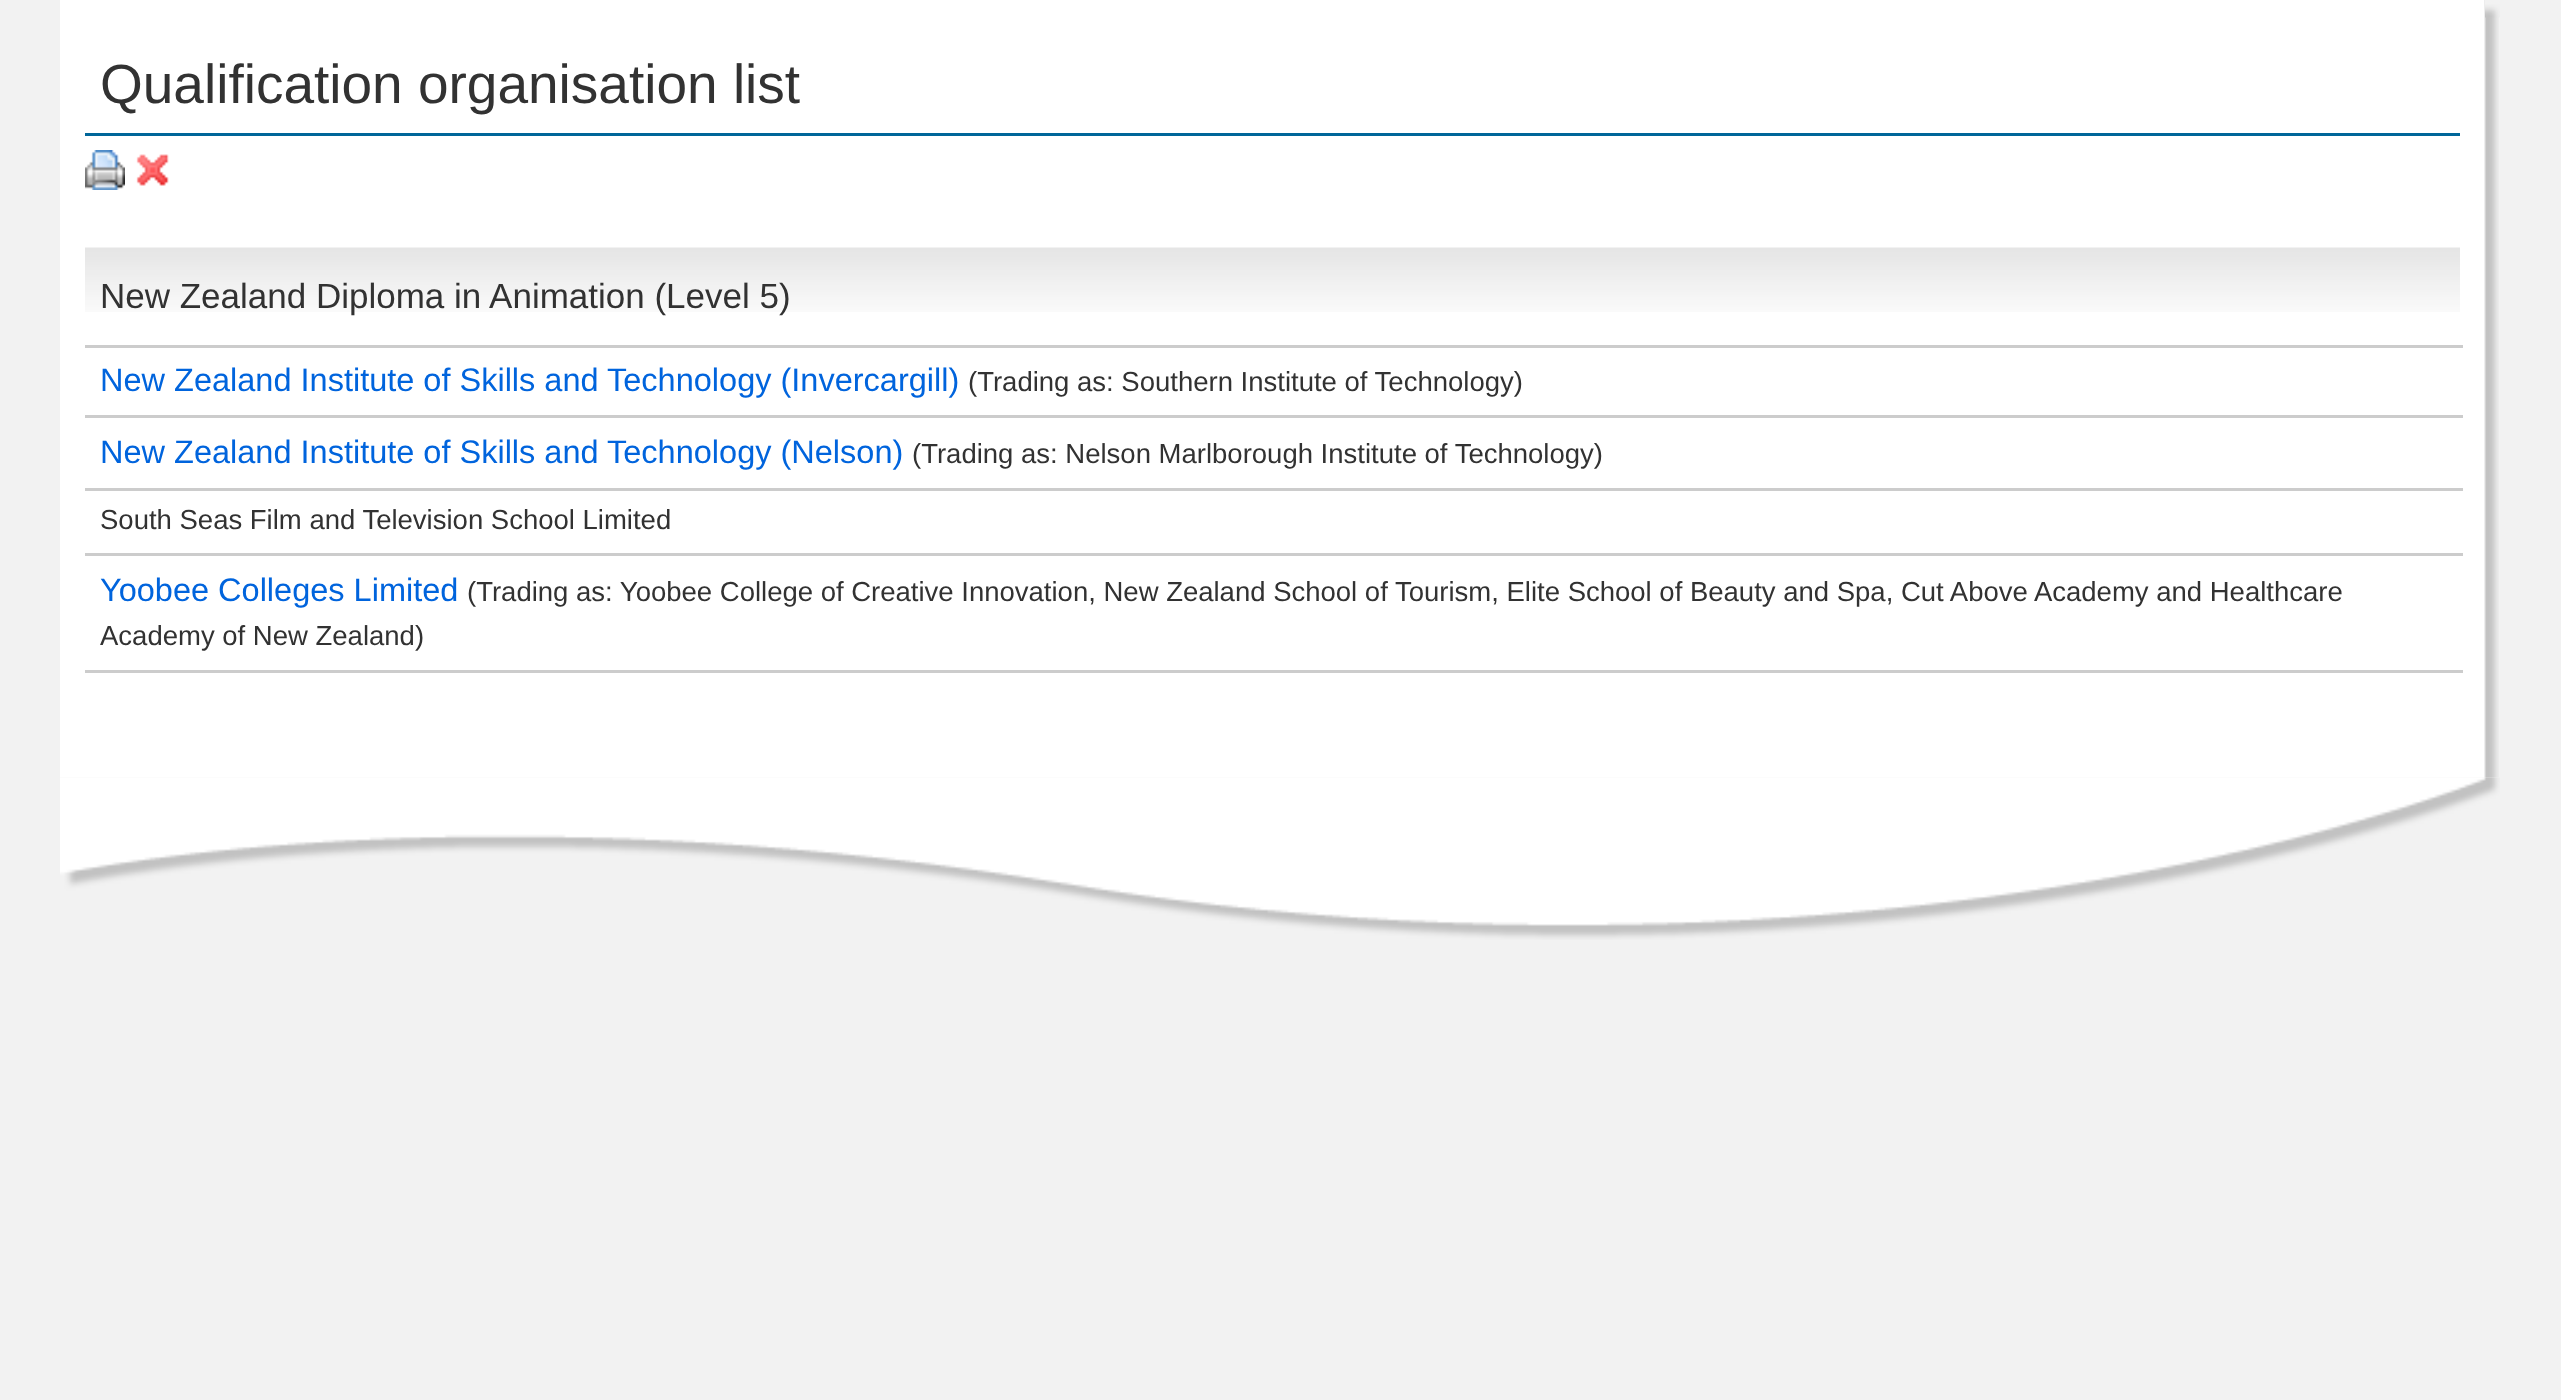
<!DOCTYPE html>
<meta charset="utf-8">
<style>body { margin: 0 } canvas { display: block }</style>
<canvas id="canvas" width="2561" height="1400"></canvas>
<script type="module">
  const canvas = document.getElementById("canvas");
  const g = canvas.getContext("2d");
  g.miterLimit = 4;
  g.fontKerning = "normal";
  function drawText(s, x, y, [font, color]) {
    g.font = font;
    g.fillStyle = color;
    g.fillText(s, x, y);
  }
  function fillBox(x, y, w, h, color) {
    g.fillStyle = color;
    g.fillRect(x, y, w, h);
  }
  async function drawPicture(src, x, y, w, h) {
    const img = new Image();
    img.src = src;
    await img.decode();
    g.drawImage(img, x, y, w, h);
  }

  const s1 = ["55px Liberation Sans", "#323232"];
  const s2 = ["35px Liberation Sans", "#323232"];
  const s3 = ["32.5px Liberation Sans", "#0064DD"];
  const s4 = ["27.5px Liberation Sans", "#323232"];

  fillBox(0, 0, 2561, 1400, "#F2F2F2");
  await drawPicture("pic6.png", 60, 777, 2440, 163);
  await drawPicture("pic1.png", 60, 0, 2439, 778);
  await drawPicture("pic2.png", 2485, 0, 15, 18);
  fillBox(85, 133, 2375, 3, "#006699");
  drawText("Qualification organisation list", 100, 103, s1);
  await drawPicture("pic3.png", 85, 150, 40, 40);
  await drawPicture("pic4.png", 136, 154, 33, 32);
  await drawPicture("pic5.png", 85, 247, 2375, 65);
  fillBox(85, 345, 2378, 3, "#CCCCCC");
  drawText("New Zealand Diploma in Animation (Level 5)", 100, 308, s2);
  fillBox(85, 415, 2378, 3, "#CCCCCC");
  drawText("New Zealand Institute of Skills and Technology (Invercargill)", 100, 391, s3);
  drawText("(Trading as: Southern Institute of Technology)", 968, 391, s4);
  fillBox(85, 488, 2378, 3, "#CCCCCC");
  drawText("New Zealand Institute of Skills and Technology (Nelson)", 100, 463, s3);
  drawText("(Trading as: Nelson Marlborough Institute of Technology)", 912, 463, s4);
  fillBox(85, 553, 2378, 3, "#CCCCCC");
  drawText("South Seas Film and Television School Limited", 100, 529, s4);
  fillBox(85, 670, 2378, 3, "#CCCCCC");
  drawText("Yoobee Colleges Limited", 100, 601, s3);
  drawText("(Trading as: Yoobee College of Creative Innovation, New Zealand School of Tourism, Elite School of Beauty and Spa, Cut Above Academy and Healthcare", 467, 601, s4);
  drawText("Academy of New Zealand)", 100, 645, s4);
</script>
